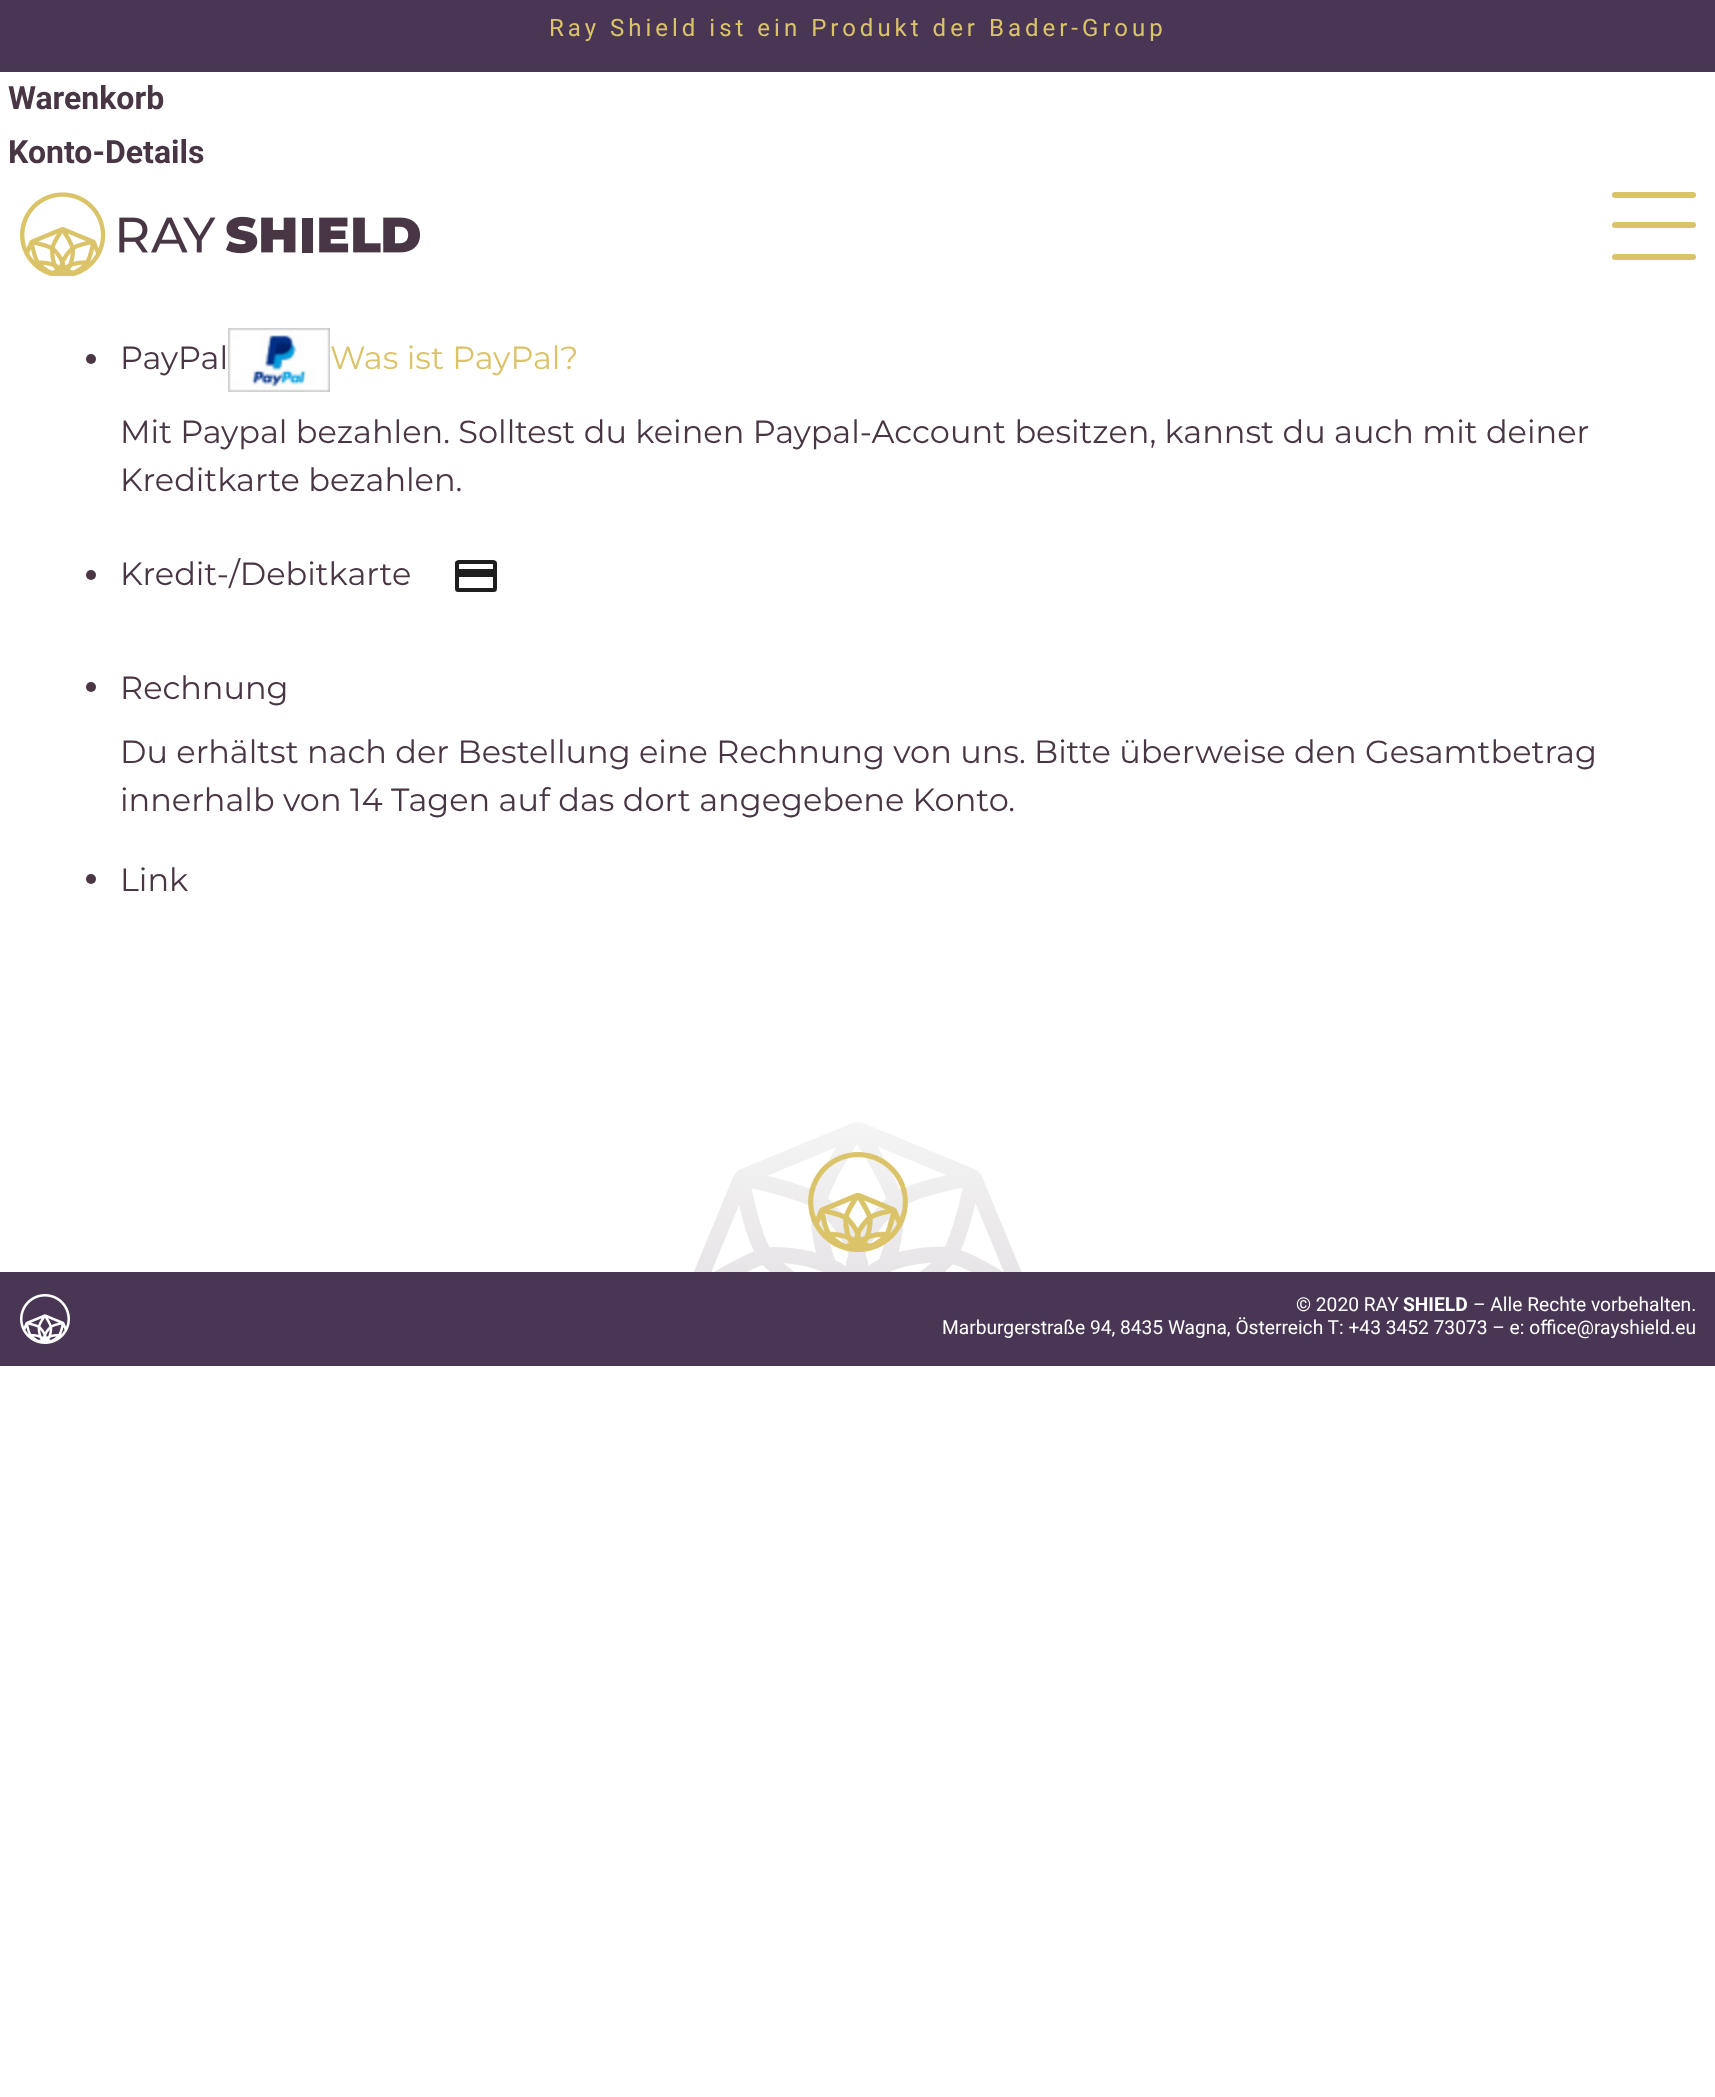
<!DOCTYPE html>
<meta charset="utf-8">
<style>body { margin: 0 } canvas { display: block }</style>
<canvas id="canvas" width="1715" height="2097"></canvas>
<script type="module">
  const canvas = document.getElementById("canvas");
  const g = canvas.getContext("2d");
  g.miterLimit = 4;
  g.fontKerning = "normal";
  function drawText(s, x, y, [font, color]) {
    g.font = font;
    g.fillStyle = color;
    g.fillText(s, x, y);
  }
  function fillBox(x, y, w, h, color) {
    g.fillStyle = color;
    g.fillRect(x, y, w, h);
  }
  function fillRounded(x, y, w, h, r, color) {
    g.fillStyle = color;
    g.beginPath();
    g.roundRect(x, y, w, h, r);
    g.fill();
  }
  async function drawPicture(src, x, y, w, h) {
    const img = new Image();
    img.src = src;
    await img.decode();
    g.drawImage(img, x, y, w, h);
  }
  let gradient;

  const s1 = ["24px Roboto", "#DBC369"];
  const s2 = ["bold 32px Roboto", "#483645"];
  const s3 = ["32px Montserrat", "#483645"];
  const s4 = ["32px Montserrat", "#DBC369"];
  const s5 = ["19.2px Roboto", "#FFFFFF"];
  const s6 = ["bold 19.2px Roboto", "#FFFFFF"];

  fillBox(0, 0, 1715, 2097, "#FFFFFF");
  fillBox(0, 0, 1715, 72, "#483654");
  g.letterSpacing = "4px";
  drawText("Ray Shield ist ein Produkt der Bader-Group", 549, 36, s1);
  g.letterSpacing = "0px";
  drawText("Warenkorb", 8, 109, s2);
  drawText("Konto-Details", 8, 163, s2);
  await drawPicture("pic1.png", 20, 192, 400, 84);
  fillRounded(1612, 222, 84, 6, 3, "#DBC369");
  fillRounded(1612, 192, 84, 6, 3, "#DBC369");
  fillRounded(1612, 254, 84, 6, 3, "#DBC369");
  g.fillStyle = "#483645";
  g.beginPath();
  g.arc(91, 359, 5, 0, Math.PI * 2);
  g.fill();
  drawText("PayPal", 120, 369, s3);
  await drawPicture("pic2.png", 228, 328, 102, 64);
  drawText("Was ist PayPal?", 330, 369, s4);
  drawText("Mit Paypal bezahlen. Solltest du keinen Paypal-Account besitzen, kannst du auch mit deiner", 120, 443, s3);
  drawText("Kreditkarte bezahlen.", 120, 491, s3);
  g.beginPath();
  g.arc(91, 575, 5, 0, Math.PI * 2);
  g.fill();
  drawText("Kredit-/Debitkarte", 120, 585, s3);
  g.fillStyle = "#1E1E1E";
  g.beginPath();
  g.moveTo(459, 569);
  g.lineTo(459, 564);
  g.lineTo(493, 564);
  g.lineTo(493, 569);
  g.closePath();
  g.moveTo(459, 577);
  g.lineTo(459, 588);
  g.lineTo(493, 588);
  g.lineTo(493, 577);
  g.closePath();
  g.moveTo(455, 563);
  g.bezierCurveTo(455, 559, 462, 560, 464, 560);
  g.lineTo(488, 560);
  g.bezierCurveTo(490, 560, 497, 559, 497, 563);
  g.lineTo(497, 585);
  g.bezierCurveTo(497, 593, 497, 592, 488, 592);
  g.lineTo(464, 592);
  g.bezierCurveTo(455, 592, 455, 593, 455, 585);
  g.closePath();
  g.fill("evenodd");
  g.fillStyle = "#483645";
  g.beginPath();
  g.arc(91, 687, 5, 0, Math.PI * 2);
  g.fill();
  drawText("Rechnung", 120, 699, s3);
  drawText("Du erhältst nach der Bestellung eine Rechnung von uns. Bitte überweise den Gesamtbetrag", 120, 763, s3);
  drawText("innerhalb von 14 Tagen auf das dort angegebene Konto.", 120, 811, s3);
  g.beginPath();
  g.arc(91, 879, 5, 0, Math.PI * 2);
  g.fill();
  drawText("Link", 120, 891, s3);
  await drawPicture("pic3.png", 693, 1122, 329, 150);
  gradient = g.createLinearGradient(858, 952, 858, 1272);
  gradient.addColorStop(0.25, "#FFFFFF");
  gradient.addColorStop(1, "rgba(255, 255, 255, 0.87)");
  g.fillStyle = gradient;
  g.fillRect(693, 1122, 329, 150);
  await drawPicture("pic4.png", 808, 1152, 100, 100);
  fillBox(0, 1272, 1715, 94, "#483654");
  await drawPicture("pic5.png", 20, 1294, 50, 50);
  drawText("© 2020 RAY", 1296, 1311, s5);
  drawText("SHIELD", 1403, 1311, s6);
  drawText("– Alle Rechte vorbehalten.", 1473, 1311, s5);
  drawText("Marburgerstraße 94, 8435 Wagna, Österreich T: +43 3452 73073 – e: office@rayshield.eu", 942, 1334, s5);
</script>
